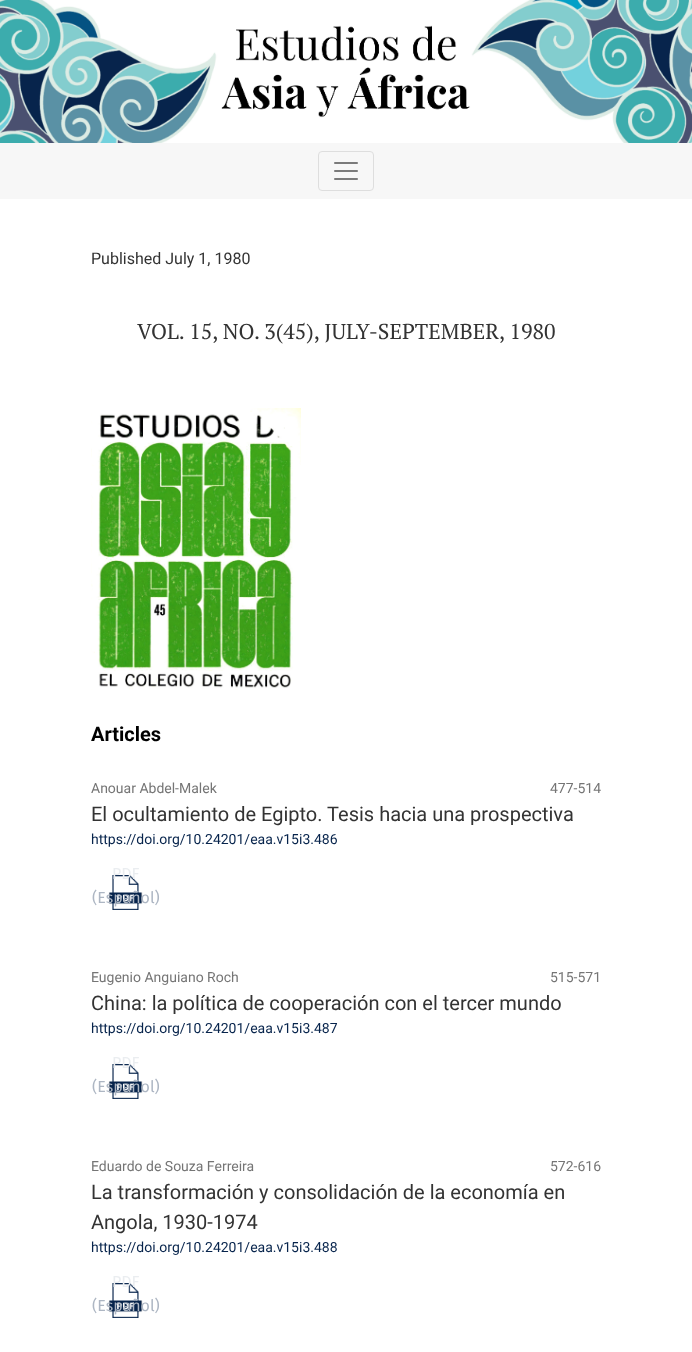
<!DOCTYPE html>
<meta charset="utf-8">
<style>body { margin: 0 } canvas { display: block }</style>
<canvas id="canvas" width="692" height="1352"></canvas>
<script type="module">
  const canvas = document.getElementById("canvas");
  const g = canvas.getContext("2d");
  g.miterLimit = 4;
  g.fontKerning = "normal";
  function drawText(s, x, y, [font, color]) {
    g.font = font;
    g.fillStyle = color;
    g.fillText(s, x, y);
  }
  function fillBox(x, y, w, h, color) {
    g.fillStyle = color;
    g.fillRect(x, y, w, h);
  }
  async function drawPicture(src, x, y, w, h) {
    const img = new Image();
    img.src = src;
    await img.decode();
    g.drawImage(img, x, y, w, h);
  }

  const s1 = ["16px Roboto", "#333333"];
  const s2 = ["21.6px PT Serif", "#333333"];
  const s3 = ["bold 20px Roboto", "#000000"];
  const s4 = ["14px Roboto", "#757575"];
  const s5 = ["20px Roboto", "#333333"];
  const s6 = ["14px Roboto", "#07244C"];
  const s7 = ["16px Fira Sans", "#EAEDF0"];
  const s8 = ["16px Fira Sans", "#ADB6C3"];

  fillBox(0, 0, 692, 1352, "#FFFFFF");
  fillBox(0, 143, 692, 56, "#F7F7F7");
  await drawPicture("pic1.png", 0, 0, 692, 143);
  g.beginPath();
  g.roundRect(318.5, 151.5, 55, 39, 3.5);
  g.strokeStyle = "#DEDEDE";
  g.stroke();
  await drawPicture("pic2.png", 334, 162, 24, 18);
  drawText("Published July 1, 1980", 91, 264, s1);
  drawText("VOL. 15, NO. 3(45), JULY-SEPTEMBER, 1980", 137, 339, s2);
  await drawPicture("pic3.png", 91, 408, 210, 282);
  drawText("Articles", 91, 741, s3);
  drawText("Anouar Abdel-Malek", 91, 793, s4);
  drawText("477-514", 550, 793, s4);
  drawText("El ocultamiento de Egipto. Tesis hacia una prospectiva", 91, 821, s5);
  drawText("https://doi.org/10.24201/eaa.v15i3.486", 91, 844, s6);
  await drawPicture("pic4.png", 108, 875, 35, 35);
  drawText("PDF", 112, 879, s7);
  drawText("(Español)", 92, 903, s8);
  drawText("Eugenio Anguiano Roch", 91, 982, s4);
  drawText("515-571", 550, 982, s4);
  drawText("China: la política de cooperación con el tercer mundo", 91, 1010, s5);
  drawText("https://doi.org/10.24201/eaa.v15i3.487", 91, 1033, s6);
  await drawPicture("pic4.png", 108, 1064, 35, 35);
  drawText("PDF", 112, 1068, s7);
  drawText("(Español)", 92, 1092, s8);
  drawText("Eduardo de Souza Ferreira", 91, 1171, s4);
  drawText("572-616", 550, 1171, s4);
  drawText("La transformación y consolidación de la economía en", 91, 1199, s5);
  drawText("Angola, 1930-1974", 91, 1229, s5);
  drawText("https://doi.org/10.24201/eaa.v15i3.488", 91, 1252, s6);
  await drawPicture("pic4.png", 108, 1283, 35, 35);
  drawText("PDF", 112, 1287, s7);
  drawText("(Español)", 92, 1311, s8);
</script>
